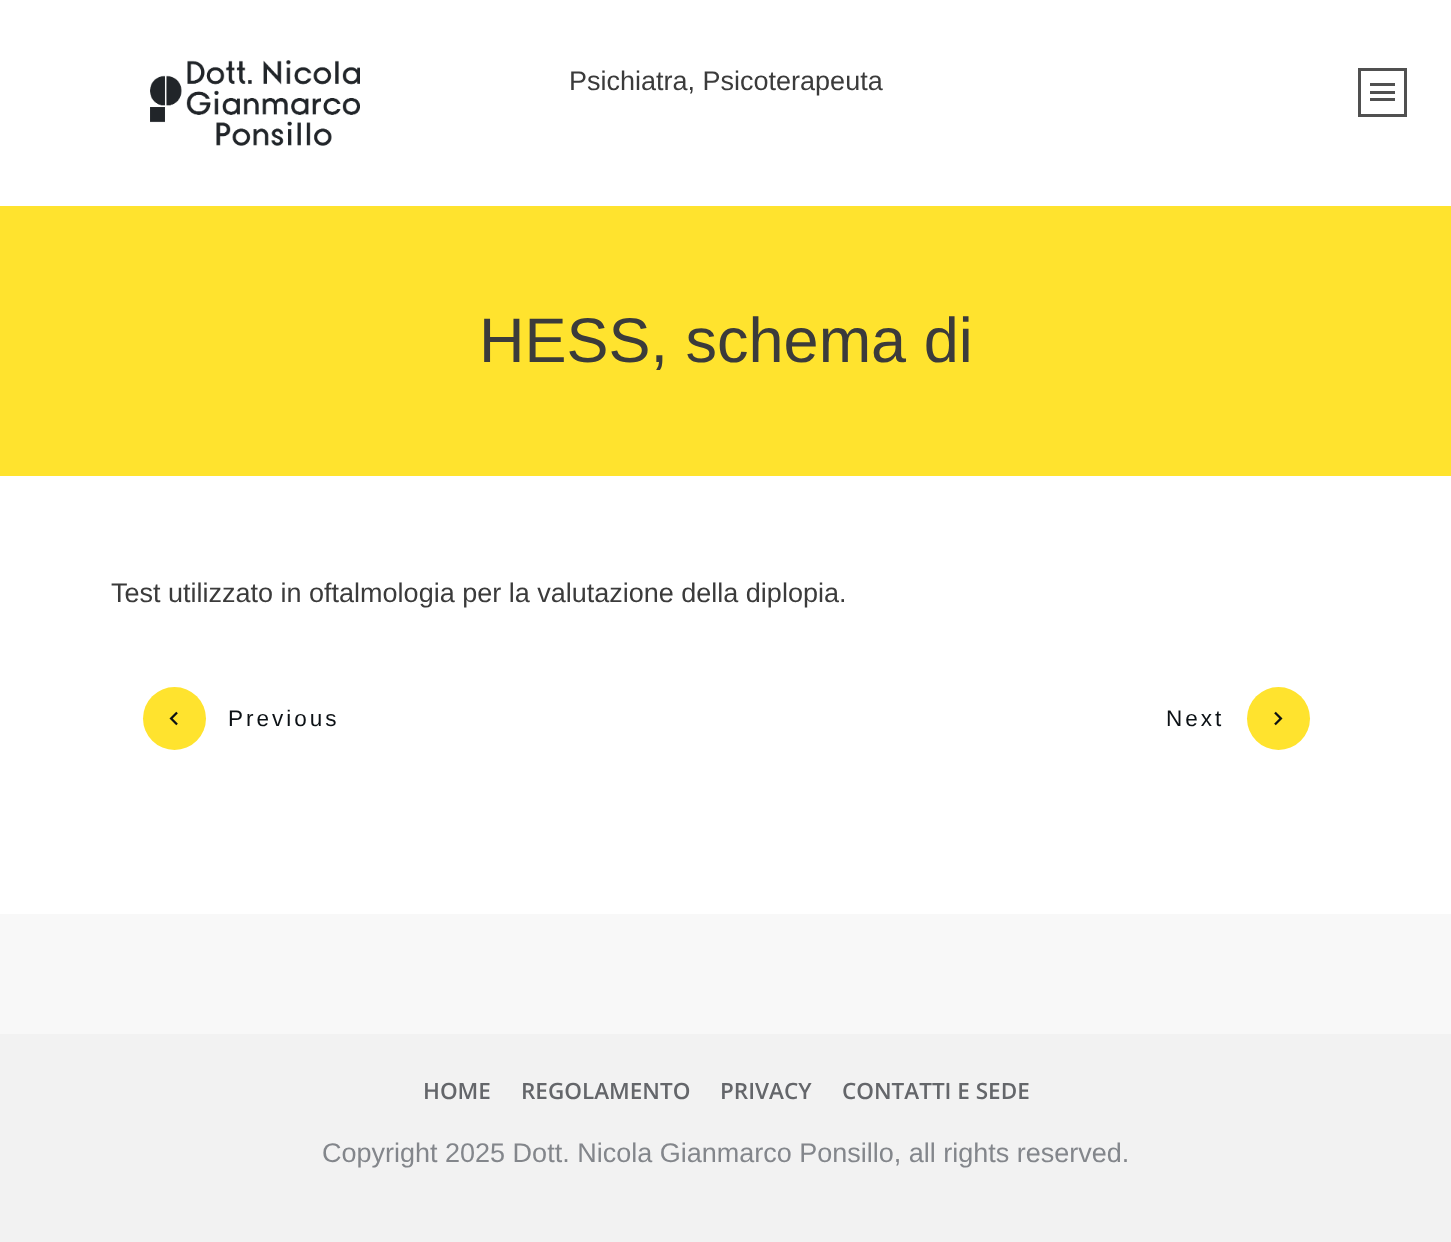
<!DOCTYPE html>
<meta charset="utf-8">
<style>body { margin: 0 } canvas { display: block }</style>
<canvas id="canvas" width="1451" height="1242"></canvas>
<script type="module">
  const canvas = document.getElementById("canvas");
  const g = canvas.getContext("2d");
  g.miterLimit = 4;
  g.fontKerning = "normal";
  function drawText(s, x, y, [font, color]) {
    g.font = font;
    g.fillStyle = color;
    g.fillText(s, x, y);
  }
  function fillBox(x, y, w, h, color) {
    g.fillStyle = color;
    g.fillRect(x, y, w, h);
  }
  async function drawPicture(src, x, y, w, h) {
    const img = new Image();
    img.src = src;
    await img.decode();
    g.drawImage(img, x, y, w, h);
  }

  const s1 = ["27px Liberation Sans", "#3B3B3B"];
  const s2 = ["63px Liberation Sans", "#3B3B3B"];
  const s3 = ["22.5px Liberation Sans", "#0C1115"];
  const s4 = ["600 22.5px Open Sans", "#64666A"];
  const s5 = ["27px Liberation Sans", "#83868B"];

  fillBox(0, 0, 1451, 1242, "#FFFFFF");
  await drawPicture("pic1.png", 150, 60, 210, 86);
  drawText("Psichiatra, Psicoterapeuta", 569, 90, s1);
  fillBox(1370, 83, 25, 3, "#505050");
  fillBox(1370, 91, 25, 3, "#505050");
  fillBox(1370, 98, 25, 3, "#505050");
  g.beginPath();
  g.moveTo(1358, 68);
  g.lineTo(1358, 117);
  g.lineTo(1407, 117);
  g.lineTo(1407, 68);
  g.closePath();
  g.moveTo(1404, 114);
  g.lineTo(1361, 114);
  g.lineTo(1361, 71);
  g.lineTo(1404, 71);
  g.closePath();
  g.fill();
  fillBox(0, 206, 1451, 270, "#FFE32E");
  drawText("HESS, schema di", 479, 362, s2);
  drawText("Test utilizzato in oftalmologia per la valutazione della diplopia.", 111, 602, s1);
  g.fillStyle = "#FFE32E";
  g.beginPath();
  g.arc(174.5, 718.5, 31.5, 0, Math.PI * 2);
  g.fill();
  await drawPicture("pic2.png", 169, 711, 9, 15);
  g.letterSpacing = "3px";
  drawText("Previous", 228, 726, s3);
  drawText("Next", 1166, 726, s3);
  g.fillStyle = "#FFE32E";
  g.beginPath();
  g.arc(1278.5, 718.5, 31.5, 0, Math.PI * 2);
  g.fill();
  await drawPicture("pic3.png", 1274, 711, 9, 15);
  fillBox(0, 914, 1451, 120, "#F8F8F8");
  fillBox(0, 1034, 1451, 208, "#F2F2F2");
  g.letterSpacing = "0px";
  drawText("HOME", 423, 1099, s4);
  drawText("REGOLAMENTO", 521, 1099, s4);
  drawText("PRIVACY", 720, 1099, s4);
  drawText("CONTATTI E SEDE", 842, 1099, s4);
  drawText("Copyright 2025 Dott. Nicola Gianmarco Ponsillo, all rights reserved.", 322, 1162, s5);
</script>
